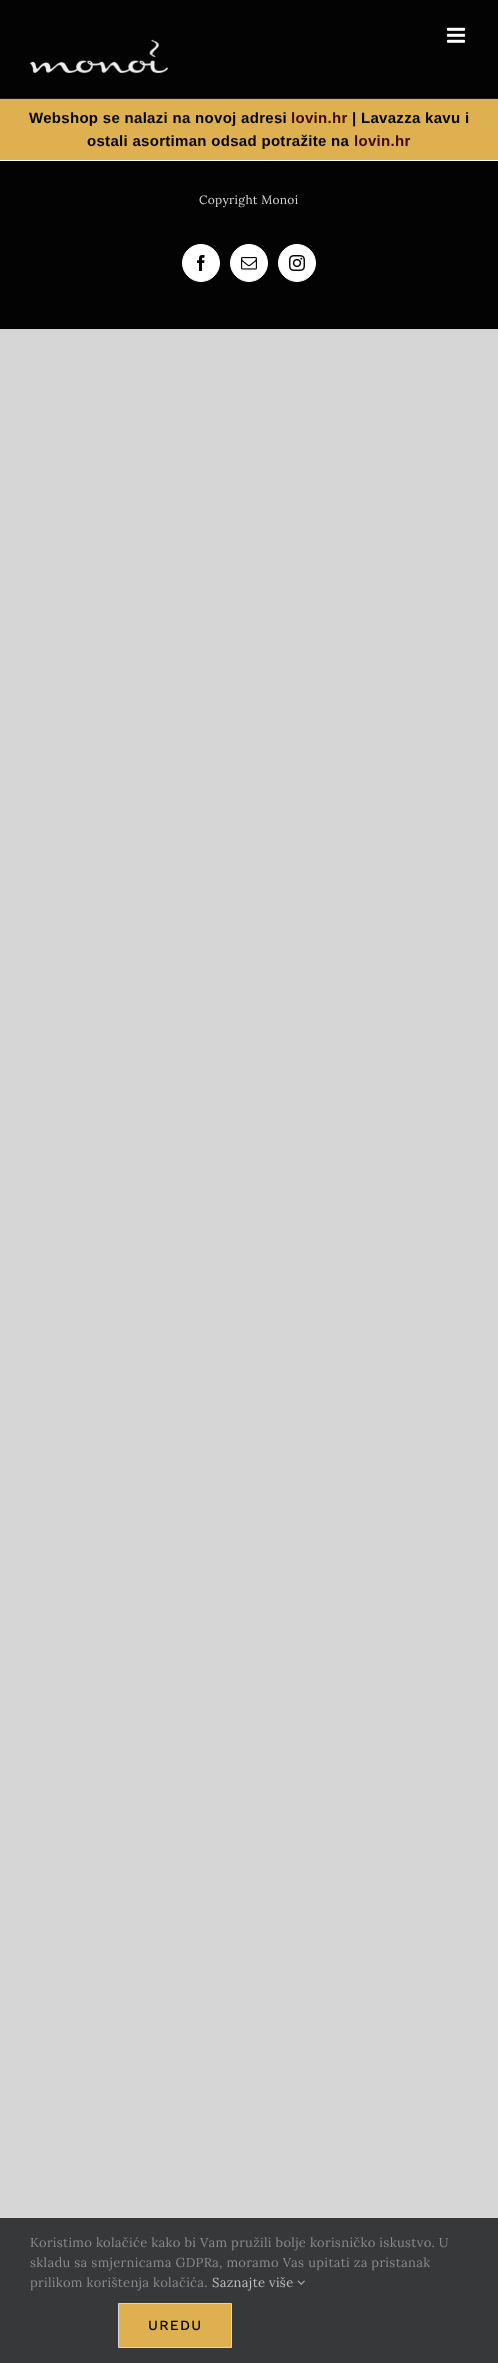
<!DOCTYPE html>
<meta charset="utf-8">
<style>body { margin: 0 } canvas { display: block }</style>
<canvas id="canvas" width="498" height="2363"></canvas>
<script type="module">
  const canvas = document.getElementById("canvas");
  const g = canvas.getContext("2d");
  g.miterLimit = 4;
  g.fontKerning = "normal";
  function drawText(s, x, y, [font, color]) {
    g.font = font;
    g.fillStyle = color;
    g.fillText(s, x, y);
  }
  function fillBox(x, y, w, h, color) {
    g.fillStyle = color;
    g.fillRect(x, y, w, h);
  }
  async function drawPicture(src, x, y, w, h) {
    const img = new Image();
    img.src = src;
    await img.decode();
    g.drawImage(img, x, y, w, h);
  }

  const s1 = ["bold 15px Liberation Sans", "#030303"];
  const s2 = ["bold 15px Liberation Sans", "#3F0900"];
  const s3 = ["12px Lora", "#D6D6D6"];
  const s4 = ["13px Lora", "#8C8989"];
  const s5 = ["13px Lora", "#BFBFBF"];
  const s6 = ["500 14px Work Sans", "#030303"];

  fillBox(0, 0, 498, 2363, "#D7D6D6");
  fillBox(0, 160, 498, 1, "#FFFFFF");
  fillBox(0, 0, 498, 98, "#030303");
  fillBox(0, 98, 498, 1, "#1C1C1C");
  await drawPicture("pic1.png", 447, 27, 18, 16);
  await drawPicture("pic2.png", 30, 39, 138, 34);
  fillBox(0, 99, 498, 61, "#DEB04F");
  g.letterSpacing = "0.3px";
  drawText("Webshop se nalazi na novoj adresi", 29, 123, s1);
  drawText("lovin.hr", 291, 123, s2);
  drawText("| Lavazza kavu i", 352, 123, s1);
  drawText("ostali asortiman odsad potražite na", 87, 146, s1);
  drawText("lovin.hr", 354, 146, s2);
  fillBox(0, 161, 498, 168, "#030303");
  drawText("Copyright Monoi", 199, 204, s3);
  g.fillStyle = "#FFFFFF";
  g.beginPath();
  g.arc(201, 263, 18.5, 0, Math.PI * 2);
  g.fill();
  g.strokeStyle = "#FFFFFF";
  g.stroke();
  await drawPicture("pic3.png", 197, 255, 8, 16);
  g.beginPath();
  g.arc(249, 263, 18.5, 0, Math.PI * 2);
  g.fill();
  g.stroke();
  await drawPicture("pic4.png", 241, 257, 16, 13);
  g.beginPath();
  g.arc(297, 263, 18.5, 0, Math.PI * 2);
  g.fill();
  g.stroke();
  await drawPicture("pic5.png", 289, 255, 16, 16);
  fillBox(0, 2218, 498, 145, "#363839");
  drawText("Koristimo kolačiće kako bi Vam pružili bolje korisničko iskustvo. U", 30, 2247, s4);
  drawText("skladu sa smjernicama GDPRa, moramo Vas upitati za pristanak", 30, 2267, s4);
  drawText("prilikom korištenja kolačića.", 30, 2287, s4);
  drawText("Saznajte više", 212, 2287, s5);
  await drawPicture("pic6.png", 297, 2280, 8, 5);
  g.fillStyle = "#DEB04F";
  g.beginPath();
  g.rect(118.5, 2303.5, 113, 44);
  g.fill();
  g.strokeStyle = "#D6D6D6";
  g.stroke();
  g.letterSpacing = "1.25px";
  drawText("UREDU", 148, 2330, s6);
</script>
